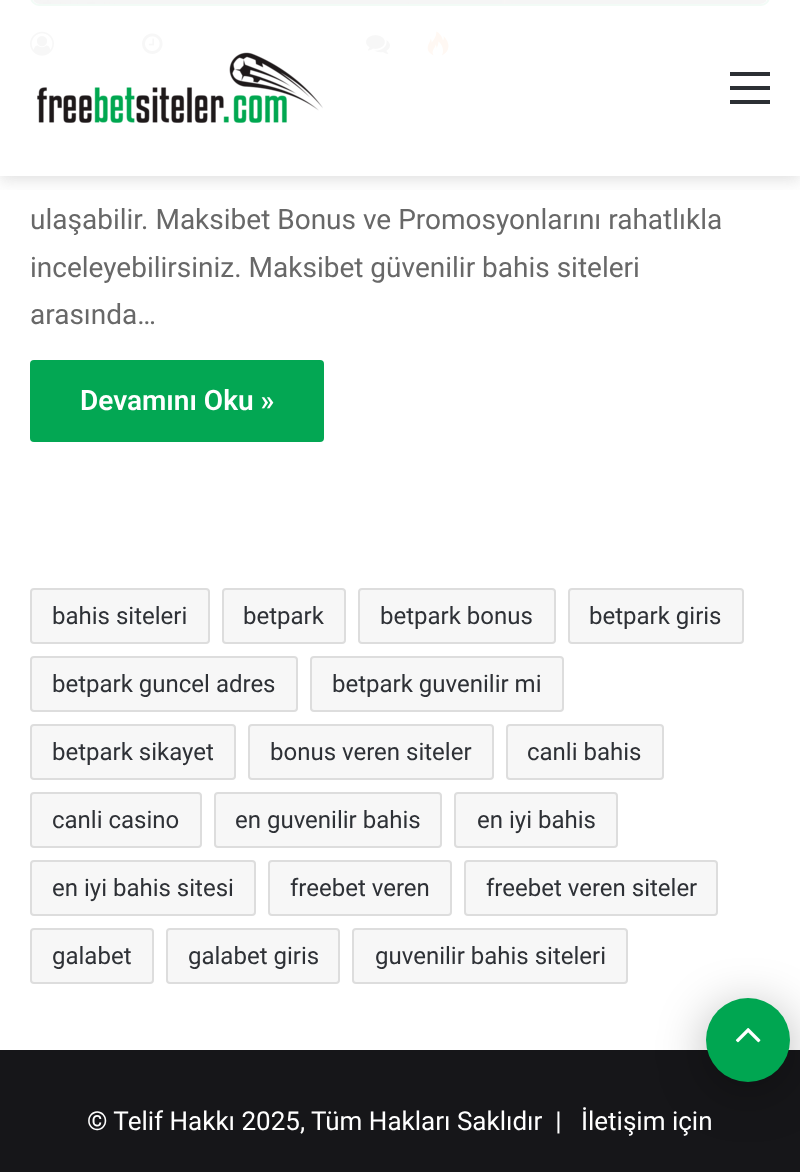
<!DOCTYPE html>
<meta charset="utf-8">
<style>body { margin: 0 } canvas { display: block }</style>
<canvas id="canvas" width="800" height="1172"></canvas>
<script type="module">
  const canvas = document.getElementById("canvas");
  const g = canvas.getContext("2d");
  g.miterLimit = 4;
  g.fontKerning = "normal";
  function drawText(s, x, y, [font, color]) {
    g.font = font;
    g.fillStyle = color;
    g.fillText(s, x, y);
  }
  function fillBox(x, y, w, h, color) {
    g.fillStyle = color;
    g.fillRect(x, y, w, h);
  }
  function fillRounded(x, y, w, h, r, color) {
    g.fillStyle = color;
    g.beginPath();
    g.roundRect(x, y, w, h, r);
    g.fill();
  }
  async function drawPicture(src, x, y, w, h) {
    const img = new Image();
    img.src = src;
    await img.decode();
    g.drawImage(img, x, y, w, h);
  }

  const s1 = ["28px Roboto", "#686868"];
  const s2 = ["600 28px Roboto", "#FFFFFF"];
  const s3 = ["24px Roboto", "#2E3136"];
  const s4 = ["26px Roboto", "#FFFFFF"];

  fillBox(0, 0, 800, 1172, "#FFFFFF");
  g.beginPath();
  g.roundRect(31, -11, 738, 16, 9);
  g.strokeStyle = "#03A753";
  g.lineWidth = 2;
  g.stroke();
  await drawPicture("pic2.png", 33, 0, 734, 4);
  await drawPicture("pic3.png", 30, 31, 24, 25);
  await drawPicture("pic4.png", 142, 33, 21, 21);
  await drawPicture("pic5.png", 366, 35, 24, 19);
  await drawPicture("pic6.png", 427, 31, 22, 25);
  g.save();
  g.beginPath();
  g.rect(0, 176, 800, 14);
  g.clip();
  g.fillStyle = "rgba(99, 99, 99, 0.2)";
  g.filter = "blur(8px)";
  g.beginPath();
  g.rect(0, 4, 800, 176);
  g.fill();
  g.filter = "none";
  g.restore();
  fillBox(30, 0, 740, 56, "rgba(255, 255, 255, 0.95)");
  await drawPicture("pic1.png", 37, 52, 286, 71);
  fillBox(730, 86, 40, 4, "#2C2F34");
  fillBox(730, 72, 40, 4, "#2C2F34");
  fillBox(730, 100, 40, 4, "#2C2F34");
  drawText("ulaşabilir. Maksibet Bonus ve Promosyonlarını rahatlıkla", 30, 229, s1);
  drawText("inceleyebilirsiniz. Maksibet güvenilir bahis siteleri", 30, 277, s1);
  drawText("arasında…", 30, 324, s1);
  fillRounded(30, 360, 294, 82, 4, "#03A753");
  drawText("Devamını Oku »", 80, 410, s2);
  fillRounded(30, 588, 180, 56, 4, "#F7F7F7");
  g.beginPath();
  g.roundRect(31, 589, 178, 54, 3);
  g.strokeStyle = "rgba(3, 3, 3, 0.1)";
  g.stroke();
  drawText("bahis siteleri", 52, 624, s3);
  fillRounded(222, 588, 124, 56, 4, "#F7F7F7");
  g.beginPath();
  g.roundRect(223, 589, 122, 54, 3);
  g.stroke();
  drawText("betpark", 243, 624, s3);
  fillRounded(358, 588, 198, 56, 4, "#F7F7F7");
  g.beginPath();
  g.roundRect(359, 589, 196, 54, 3);
  g.stroke();
  drawText("betpark bonus", 380, 624, s3);
  fillRounded(568, 588, 176, 56, 4, "#F7F7F7");
  g.beginPath();
  g.roundRect(569, 589, 174, 54, 3);
  g.stroke();
  drawText("betpark giris", 589, 624, s3);
  fillRounded(30, 656, 268, 56, 4, "#F7F7F7");
  g.beginPath();
  g.roundRect(31, 657, 266, 54, 3);
  g.stroke();
  drawText("betpark guncel adres", 52, 692, s3);
  fillRounded(310, 656, 254, 56, 4, "#F7F7F7");
  g.beginPath();
  g.roundRect(311, 657, 252, 54, 3);
  g.stroke();
  drawText("betpark guvenilir mi", 332, 692, s3);
  fillRounded(30, 724, 206, 56, 4, "#F7F7F7");
  g.beginPath();
  g.roundRect(31, 725, 204, 54, 3);
  g.stroke();
  drawText("betpark sikayet", 52, 760, s3);
  fillRounded(248, 724, 246, 56, 4, "#F7F7F7");
  g.beginPath();
  g.roundRect(249, 725, 244, 54, 3);
  g.stroke();
  drawText("bonus veren siteler", 270, 760, s3);
  fillRounded(506, 724, 158, 56, 4, "#F7F7F7");
  g.beginPath();
  g.roundRect(507, 725, 156, 54, 3);
  g.stroke();
  drawText("canli bahis", 527, 760, s3);
  fillRounded(30, 792, 172, 56, 4, "#F7F7F7");
  g.beginPath();
  g.roundRect(31, 793, 170, 54, 3);
  g.stroke();
  drawText("canli casino", 52, 828, s3);
  fillRounded(214, 792, 228, 56, 4, "#F7F7F7");
  g.beginPath();
  g.roundRect(215, 793, 226, 54, 3);
  g.stroke();
  drawText("en guvenilir bahis", 235, 828, s3);
  fillRounded(454, 792, 164, 56, 4, "#F7F7F7");
  g.beginPath();
  g.roundRect(455, 793, 162, 54, 3);
  g.stroke();
  drawText("en iyi bahis", 477, 828, s3);
  fillRounded(30, 860, 226, 56, 4, "#F7F7F7");
  g.beginPath();
  g.roundRect(31, 861, 224, 54, 3);
  g.stroke();
  drawText("en iyi bahis sitesi", 52, 896, s3);
  fillRounded(268, 860, 184, 56, 4, "#F7F7F7");
  g.beginPath();
  g.roundRect(269, 861, 182, 54, 3);
  g.stroke();
  drawText("freebet veren", 290, 896, s3);
  fillRounded(464, 860, 254, 56, 4, "#F7F7F7");
  g.beginPath();
  g.roundRect(465, 861, 252, 54, 3);
  g.stroke();
  drawText("freebet veren siteler", 486, 896, s3);
  fillRounded(30, 928, 124, 56, 4, "#F7F7F7");
  g.beginPath();
  g.roundRect(31, 929, 122, 54, 3);
  g.stroke();
  drawText("galabet", 52, 964, s3);
  fillRounded(166, 928, 174, 56, 4, "#F7F7F7");
  g.beginPath();
  g.roundRect(167, 929, 172, 54, 3);
  g.stroke();
  drawText("galabet giris", 188, 964, s3);
  fillRounded(352, 928, 276, 56, 4, "#F7F7F7");
  g.beginPath();
  g.roundRect(353, 929, 274, 54, 3);
  g.stroke();
  drawText("guvenilir bahis siteleri", 375, 964, s3);
  fillBox(0, 1050, 800, 122, "#161619");
  drawText("© Telif Hakkı 2025, Tüm Hakları Saklıdır  |   İletişim için", 87, 1130, s4);
  g.fillStyle = "rgba(0, 0, 0, 0.3)";
  g.filter = "blur(25px)";
  g.beginPath();
  g.roundRect(706, 1008, 84, 84, 42);
  g.fill();
  g.filter = "none";
  g.fillStyle = "#00A651";
  g.beginPath();
  g.arc(748, 1040, 42, 0, Math.PI * 2);
  g.fill();
  await drawPicture("pic7.png", 735, 1028, 26, 15);
</script>
